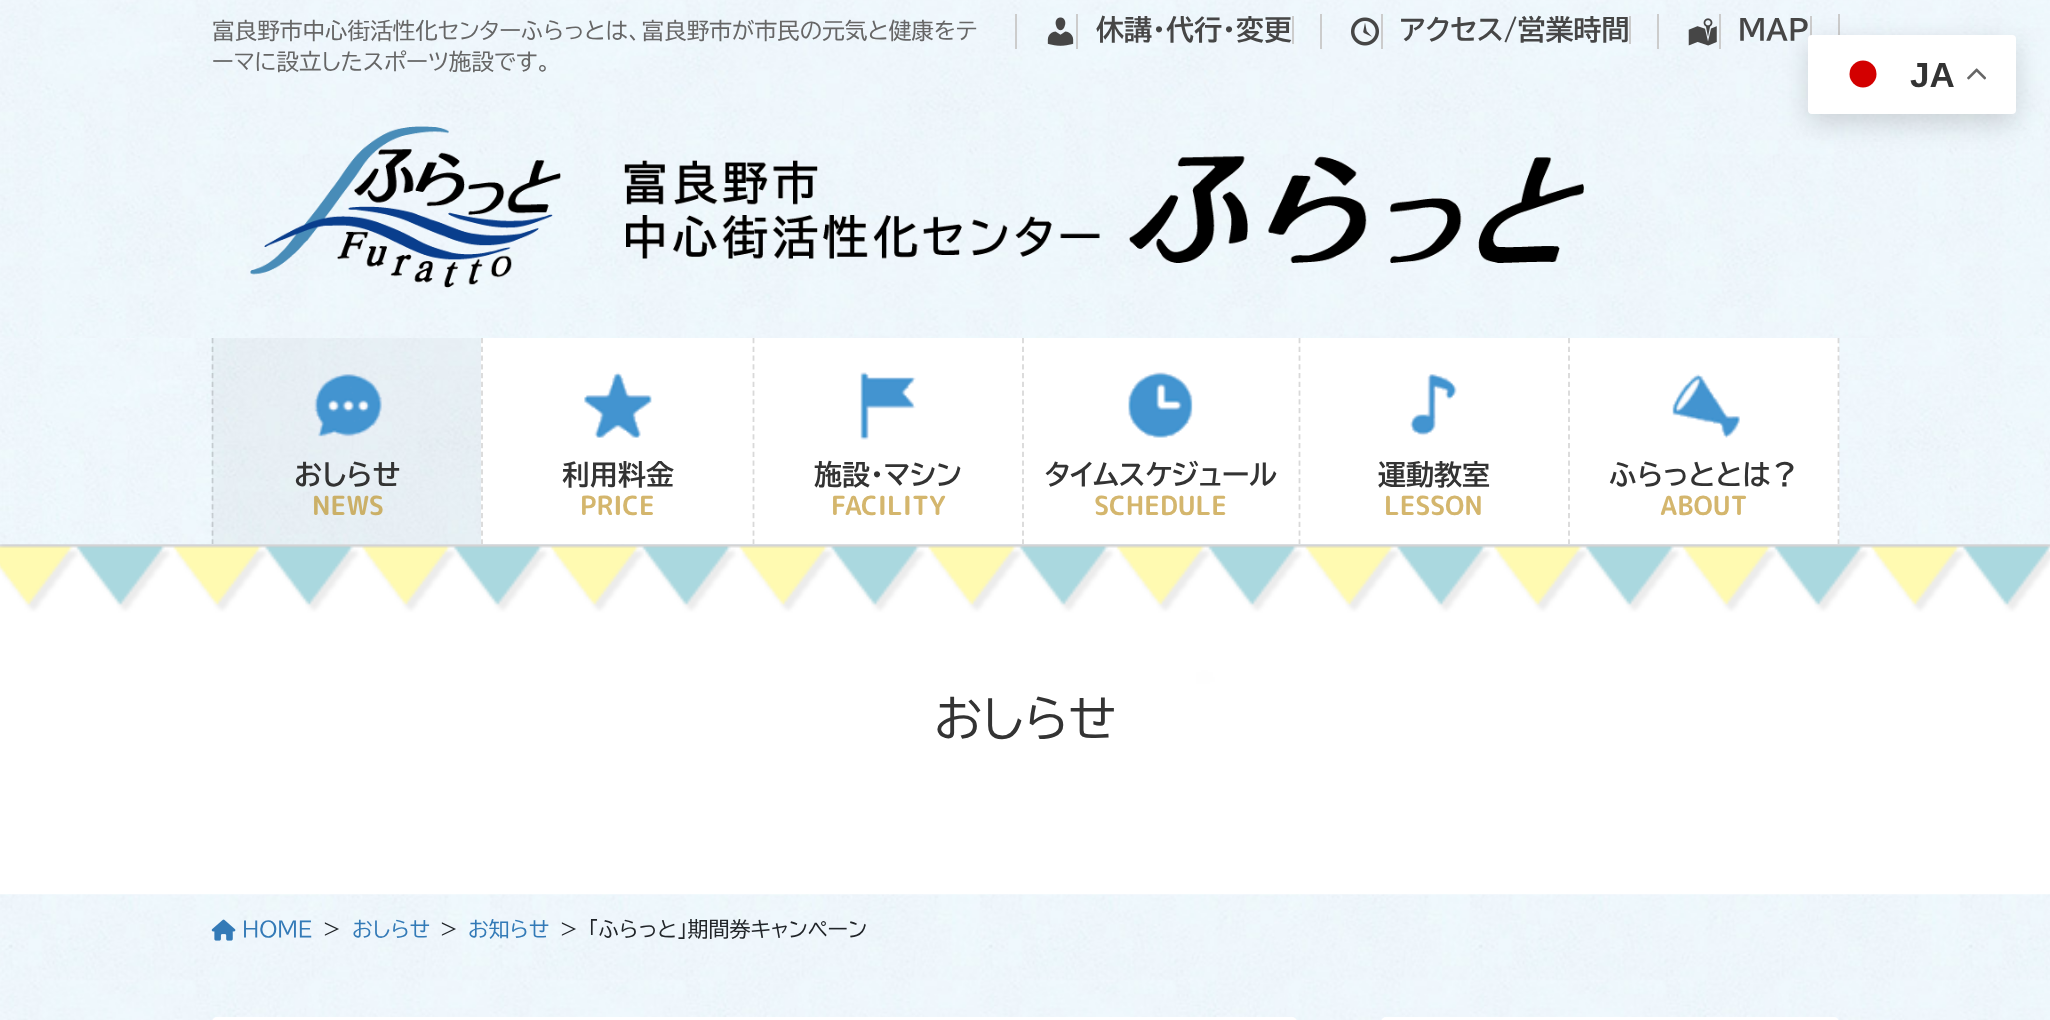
<!DOCTYPE html>
<meta charset="utf-8">
<style>body { margin: 0 } canvas { display: block }</style>
<canvas id="canvas" width="2050" height="1020"></canvas>
<script type="module">
  const canvas = document.getElementById("canvas");
  const g = canvas.getContext("2d");
  g.miterLimit = 4;
  g.fontKerning = "normal";
  function drawText(s, x, y, [font, color]) {
    g.font = font;
    g.fillStyle = color;
    g.fillText(s, x, y);
  }
  function fillBox(x, y, w, h, color) {
    g.fillStyle = color;
    g.fillRect(x, y, w, h);
  }
  function fillRounded(x, y, w, h, r, color) {
    g.fillStyle = color;
    g.beginPath();
    g.roundRect(x, y, w, h, r);
    g.fill();
  }
  async function drawPicture(src, x, y, w, h) {
    const img = new Image();
    img.src = src;
    await img.decode();
    g.drawImage(img, x, y, w, h);
  }

  const s1 = ["22.6px BIZ UDPGothic", "#666666"];
  const s2 = ["bold 28px BIZ UDPGothic", "#464646"];
  const s3 = ["bold 28px BIZ UDPGothic", "#333333"];
  const s4 = ["bold 26.25px 'Rounded Mplus 1c Bold'", "#CBB068"];
  const s5 = ["bold 26.25px 'Rounded Mplus 1c Bold'", "#D4B66D"];
  const s6 = ["bold 35px Liberation Sans", "#333333"];
  const s7 = ["49px BIZ UDPGothic", "#333333"];
  const s8 = ["21px BIZ UDPGothic", "#337AB7"];
  const s9 = ["21px BIZ UDPGothic", "#212529"];

  fillBox(0, 0, 2050, 1020, "#FFFFFF");
  await drawPicture("pic1.png", 0, 0, 2050, 1020);
  await drawPicture("pic14.png", 0, 544, 2050, 351);
  g.save();
  g.beginPath();
  g.rect(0, 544, 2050, 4);
  g.clip();
  g.fillStyle = "rgba(0, 0, 0, 0.1)";
  g.filter = "blur(2.5px)";
  g.beginPath();
  g.rect(0, -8, 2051, 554);
  g.fill();
  g.filter = "none";
  g.restore();
  drawText("富良野市中心街活性化センターふらっとは、富良野市が市民の元気と健康をテ", 212, 39, s1);
  drawText("ーマに設立したスポーツ施設です。", 212, 70, s1);
  fillBox(1320, 14, 2, 35, "#CCCCCC");
  fillBox(1015, 14, 2, 35, "#CCCCCC");
  fillBox(1076, 14, 2, 35, "#CCCCCC");
  await drawPicture("pic2.png", 1047, 17, 27, 29);
  drawText("休講･代行･変更", 1096, 40, s2);
  fillBox(1292, 16, 2, 28, "#CCCCCC");
  fillBox(1657, 14, 2, 35, "#CCCCCC");
  fillBox(1381, 14, 2, 35, "#CCCCCC");
  await drawPicture("pic3.png", 1351, 17, 28, 29);
  drawText("アクセス/営業時間", 1400, 40, s2);
  fillBox(1629, 16, 2, 28, "#CCCCCC");
  fillBox(1838, 14, 2, 21, "#CCCCCC");
  fillBox(1719, 14, 2, 35, "#CCCCCC");
  await drawPicture("pic4.png", 1688, 18, 29, 28);
  drawText("MAP", 1738, 40, s2);
  fillBox(1810, 16, 2, 28, "#CCCCCC");
  await drawPicture("pic5.png", 250, 126, 1334, 162);
  await drawPicture("pic6.png", 0, 338, 2050, 207);
  fillBox(212, 338, 269, 206, "rgba(0, 0, 0, 0.03)");
  g.beginPath();
  g.moveTo(212.5, 338);
  g.lineTo(212.5, 544);
  g.strokeStyle = "rgba(0, 0, 0, 0.15)";
  g.lineWidth = 1.8;
  g.setLineDash([5.25, 3.5]);
  g.stroke();
  await drawPicture("pic7.png", 314, 374, 68, 63);
  drawText("おしらせ", 294, 485, s3);
  drawText("NEWS", 312, 515, s4);
  fillBox(481, 338, 1358, 206, "#FFFFFF");
  g.beginPath();
  g.moveTo(482, 338);
  g.lineTo(482, 544);
  g.strokeStyle = "#D9D9D9";
  g.stroke();
  await drawPicture("pic8.png", 584, 372, 68, 66);
  drawText("利用料金", 562, 485, s3);
  drawText("PRICE", 580, 515, s5);
  g.beginPath();
  g.moveTo(753.5, 338);
  g.lineTo(753.5, 544);
  g.stroke();
  await drawPicture("pic9.png", 860, 372, 56, 68);
  drawText("施設・マシン", 814, 485, s3);
  drawText("FACILITY", 831, 515, s5);
  g.beginPath();
  g.moveTo(1023, 338);
  g.lineTo(1023, 544);
  g.stroke();
  await drawPicture("pic10.png", 1128, 372, 65, 66);
  drawText("タイムスケジュール", 1045, 485, s3);
  drawText("SCHEDULE", 1094, 515, s5);
  g.beginPath();
  g.moveTo(1299.5, 338);
  g.lineTo(1299.5, 544);
  g.stroke();
  await drawPicture("pic11.png", 1410, 374, 47, 62);
  drawText("運動教室", 1378, 485, s3);
  drawText("LESSON", 1384, 515, s5);
  g.beginPath();
  g.moveTo(1838.5, 338);
  g.lineTo(1838.5, 544);
  g.stroke();
  g.beginPath();
  g.moveTo(1569, 338);
  g.lineTo(1569, 544);
  g.stroke();
  await drawPicture("pic12.png", 1672, 374, 68, 64);
  drawText("ふらっととは？", 1609, 485, s3);
  drawText("ABOUT", 1660, 515, s5);
  g.fillStyle = "rgba(0, 0, 0, 0.15)";
  g.filter = "blur(13px)";
  g.beginPath();
  g.roundRect(1808, 44, 208, 79, 4);
  g.fill();
  g.filter = "none";
  fillRounded(1808, 35, 208, 79, 4, "#FFFFFF");
  g.fillStyle = "#D30000";
  g.beginPath();
  g.arc(1863, 74, 13.5, 0, Math.PI * 2);
  g.fill();
  drawText("JA", 1910, 87, s6);
  await drawPicture("pic13.png", 1967, 68, 19, 12);
  drawText("おしらせ", 934, 737, s7);
  await drawPicture("pic15.png", 211, 919, 25, 22);
  drawText("HOME", 242, 937, s8);
  drawText(">", 323, 937, s9);
  drawText("おしらせ", 352, 937, s8);
  drawText(">", 440, 937, s9);
  drawText("お知らせ", 468, 937, s8);
  drawText(">", 560, 937, s9);
  drawText("「ふらっと」期間券キャンペーン", 588, 937, s9);
  fillRounded(212, 1017, 1085, 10, 7, "#FFFFFF");
  fillRounded(1381, 1017, 458, 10, 7, "#FFFFFF");
</script>
